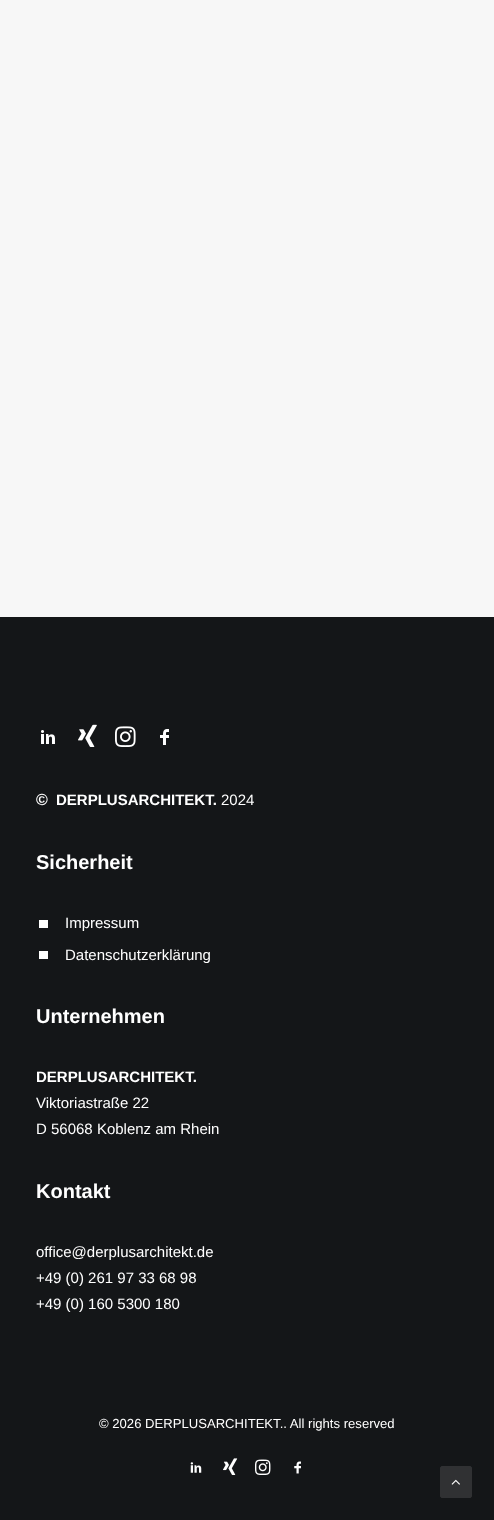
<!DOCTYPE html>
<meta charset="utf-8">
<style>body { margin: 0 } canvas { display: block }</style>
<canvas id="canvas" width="494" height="1520"></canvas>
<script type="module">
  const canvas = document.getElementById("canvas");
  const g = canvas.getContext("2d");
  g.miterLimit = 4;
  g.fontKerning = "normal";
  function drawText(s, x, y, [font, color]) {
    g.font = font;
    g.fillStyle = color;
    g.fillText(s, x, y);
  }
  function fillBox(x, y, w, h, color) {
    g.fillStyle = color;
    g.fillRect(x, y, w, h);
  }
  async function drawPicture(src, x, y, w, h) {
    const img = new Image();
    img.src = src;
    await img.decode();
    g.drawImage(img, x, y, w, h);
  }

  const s1 = ["bold 16px Liberation Sans", "#FFFFFF"];
  const s2 = ["bold 15px Liberation Sans", "#FFFFFF"];
  const s3 = ["15px Liberation Sans", "#FFFFFF"];
  const s4 = ["bold 20px Liberation Sans", "#FFFFFF"];
  const s5 = ["13.1px Liberation Sans", "#FFFFFF"];

  fillBox(0, 0, 494, 1520, "#141618");
  fillBox(0, 0, 494, 617, "#F7F7F7");
  await drawPicture("pic1.png", 41, 730, 14, 14);
  await drawPicture("pic2.png", 78, 724, 19, 23);
  await drawPicture("pic3.png", 115, 726, 21, 21);
  await drawPicture("pic4.png", 160, 729, 9, 16);
  drawText("©", 36, 805, s1);
  drawText("DERPLUSARCHITEKT.", 56, 805, s2);
  drawText("2024", 221, 805, s3);
  drawText("Sicherheit", 36, 869, s4);
  fillBox(39, 920, 9, 8, "#FFFFFF");
  drawText("Impressum", 65, 928, s3);
  fillBox(39, 951, 9, 8, "#FFFFFF");
  drawText("Datenschutzerklärung", 65, 960, s3);
  drawText("Unternehmen", 36, 1023, s4);
  drawText("DERPLUSARCHITEKT.", 36, 1082, s2);
  drawText("Viktoriastraße 22", 36, 1108, s3);
  drawText("D 56068 Koblenz am Rhein", 36, 1134, s3);
  drawText("Kontakt", 36, 1198, s4);
  drawText("office@derplusarchitekt.de", 36, 1257, s3);
  drawText("+49 (0) 261 97 33 68 98", 36, 1283, s3);
  drawText("+49 (0) 160 5300 180", 36, 1309, s3);
  drawText("© 2026 DERPLUSARCHITEKT.. All rights reserved", 99, 1428, s5);
  await drawPicture("pic5.png", 190, 1462, 12, 11);
  await drawPicture("pic6.png", 223, 1458, 15, 17);
  await drawPicture("pic7.png", 255, 1459, 16, 16);
  await drawPicture("pic8.png", 294, 1461, 7, 13);
  g.fillStyle = "#303133";
  g.beginPath();
  g.roundRect(440.5, 1466.5, 31, 31, 1.5);
  g.fill();
  g.strokeStyle = "#303133";
  g.stroke();
  await drawPicture("pic9.png", 451, 1479, 9, 6);
</script>
